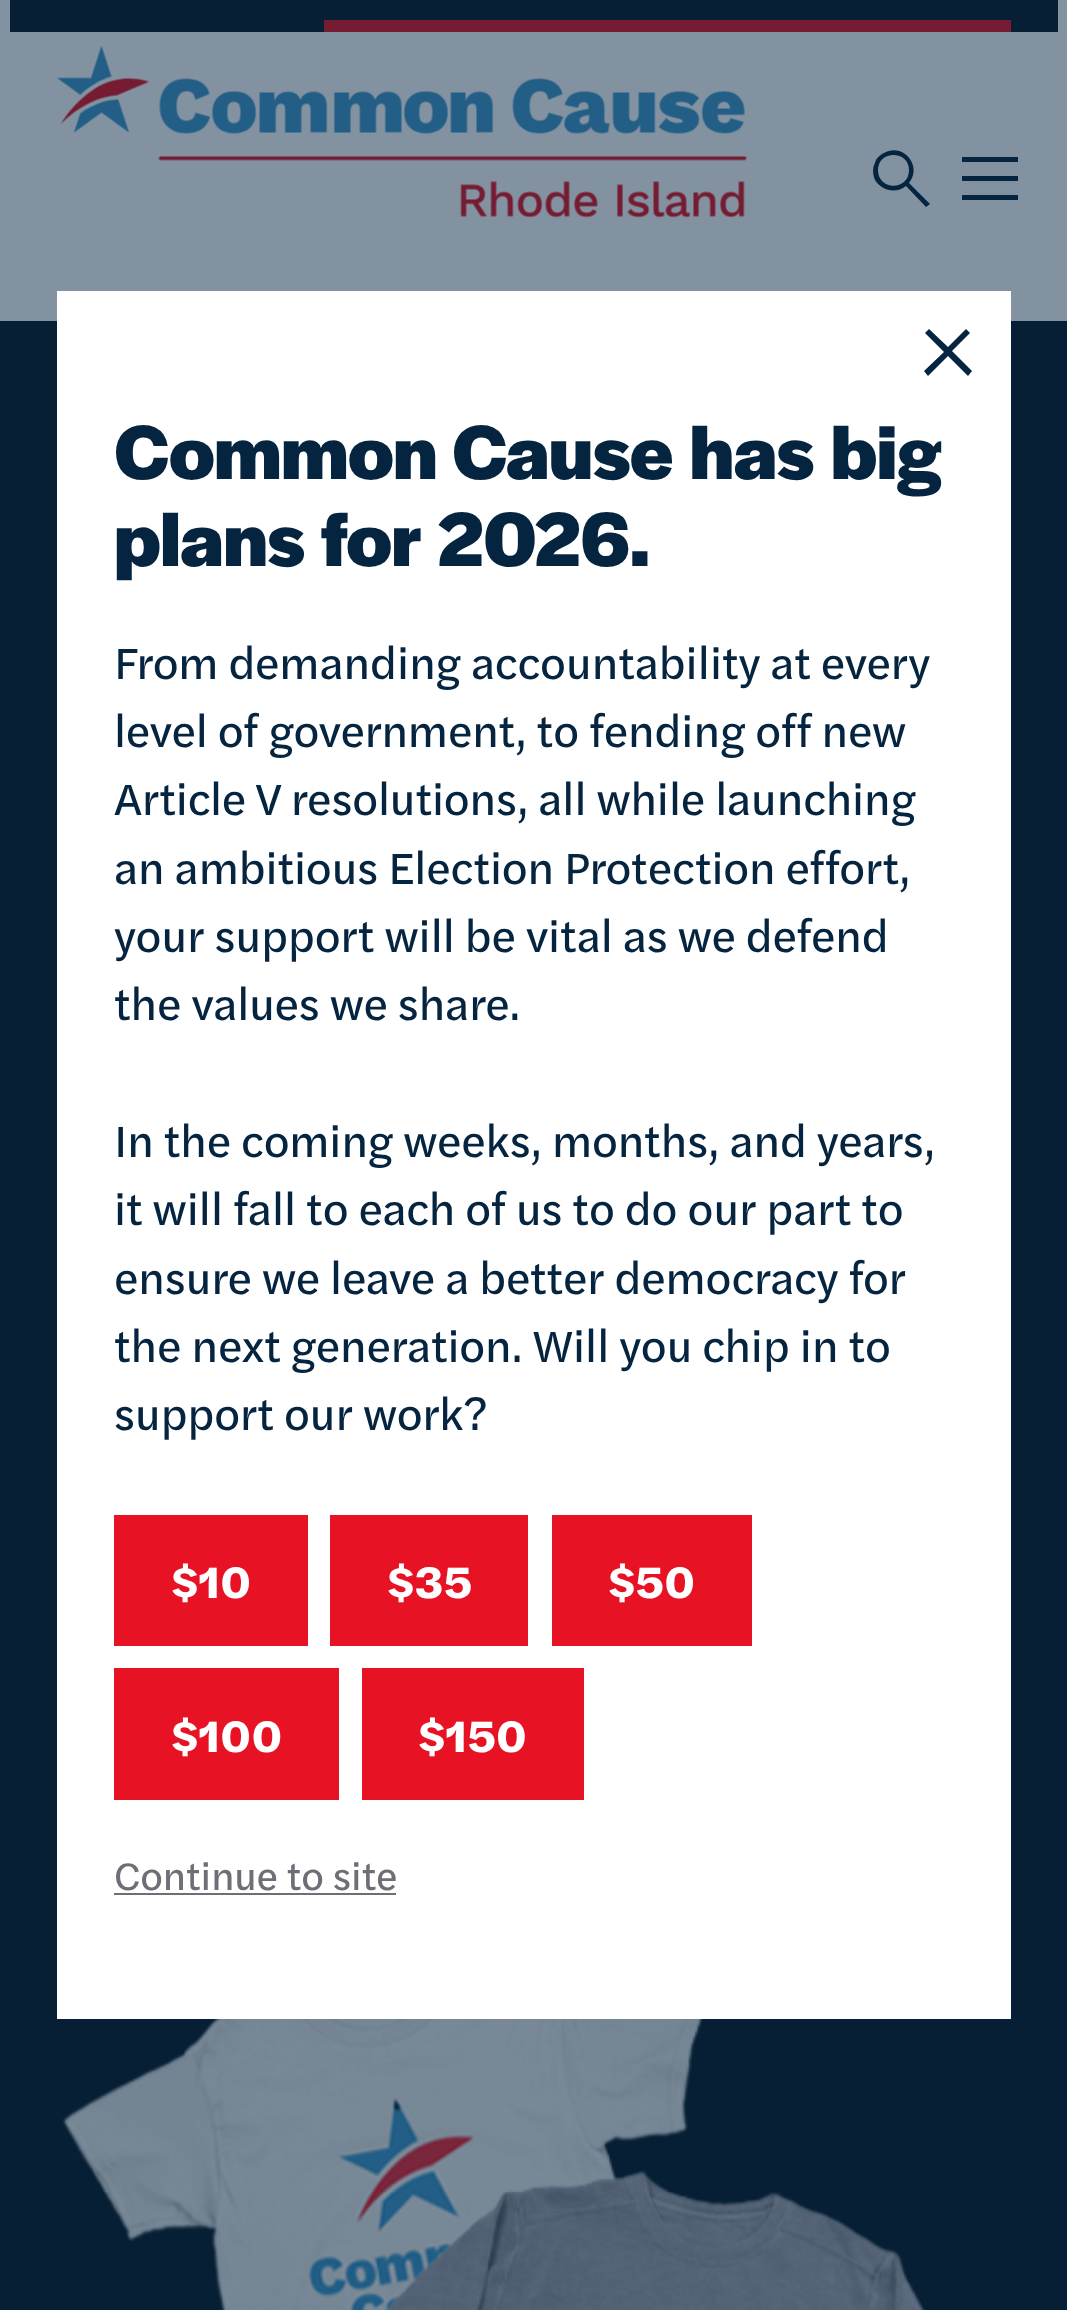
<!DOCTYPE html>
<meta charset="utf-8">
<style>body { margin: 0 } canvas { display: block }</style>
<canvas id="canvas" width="1067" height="2310"></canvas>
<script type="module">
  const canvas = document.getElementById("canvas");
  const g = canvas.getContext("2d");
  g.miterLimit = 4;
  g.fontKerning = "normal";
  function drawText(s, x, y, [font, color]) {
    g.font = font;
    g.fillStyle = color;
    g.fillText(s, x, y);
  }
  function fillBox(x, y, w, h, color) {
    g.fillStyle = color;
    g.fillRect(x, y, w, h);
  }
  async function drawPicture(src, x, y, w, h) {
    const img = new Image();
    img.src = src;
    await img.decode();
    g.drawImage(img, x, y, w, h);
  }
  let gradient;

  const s1 = ["bold 79.75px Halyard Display", "#052440"];
  const s2 = ["45.6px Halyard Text", "#052440"];
  const s3 = ["bold 45.6px Halyard Text", "#FFFFFF"];
  const s4 = ["40px Halyard Text", "#6E6E77"];

  fillBox(0, 0, 1067, 2310, "#061F35");
  fillBox(0, 0, 1067, 321, "#8292A0");
  fillBox(10, 0, 1048, 32, "#061F35");
  fillBox(324, 20, 687, 12, "#761C32");
  await drawPicture("pic1.png", 57, 45, 690, 173);
  g.fillStyle = "#052440";
  g.beginPath();
  g.moveTo(930, 204);
  g.lineTo(909, 183);
  g.bezierCurveTo(923, 166, 903, 142, 884, 153);
  g.bezierCurveTo(880, 155, 876, 158, 875, 163);
  g.bezierCurveTo(872, 168, 873, 175, 875, 180);
  g.bezierCurveTo(882, 191, 896, 194, 906, 186);
  g.lineTo(926, 207);
  g.closePath();
  g.moveTo(878, 170);
  g.bezierCurveTo(878, 150, 909, 150, 909, 170);
  g.bezierCurveTo(909, 191, 878, 191, 878, 170);
  g.closePath();
  g.fill();
  g.beginPath();
  g.moveTo(1018, 157);
  g.lineTo(1018, 162);
  g.lineTo(962, 162);
  g.lineTo(962, 157);
  g.closePath();
  g.moveTo(962, 181);
  g.lineTo(1018, 181);
  g.lineTo(1018, 176);
  g.lineTo(962, 176);
  g.closePath();
  g.moveTo(962, 200);
  g.lineTo(1018, 200);
  g.lineTo(1018, 195);
  g.lineTo(962, 195);
  g.closePath();
  g.fill();
  fillBox(57, 291, 954, 1728, "#FFFFFF");
  g.fillStyle = "#052440";
  g.beginPath();
  g.moveTo(968, 376);
  g.lineTo(948, 356);
  g.lineTo(928, 376);
  g.lineTo(924, 371);
  g.lineTo(944, 352);
  g.lineTo(925, 333);
  g.lineTo(929, 329);
  g.lineTo(948, 347);
  g.lineTo(966, 329);
  g.lineTo(970, 333);
  g.lineTo(952, 351);
  g.lineTo(972, 371);
  g.closePath();
  g.fill();
  drawText("Common Cause has big", 114, 479, s1);
  drawText("plans for 2026.", 114, 566, s1);
  drawText("From demanding accountability at every", 114, 679, s2);
  drawText("level of government, to fending off new", 114, 747, s2);
  drawText("Article V resolutions, all while launching", 114, 815, s2);
  drawText("an ambitious Election Protection effort,", 114, 884, s2);
  drawText("your support will be vital as we defend", 114, 952, s2);
  drawText("the values we share.", 114, 1020, s2);
  drawText("In the coming weeks, months, and years,", 114, 1157, s2);
  drawText("it will fall to each of us to do our part to", 114, 1225, s2);
  drawText("ensure we leave a better democracy for", 114, 1294, s2);
  drawText("the next generation. Will you chip in to", 114, 1362, s2);
  drawText("support our work?", 114, 1430, s2);
  fillBox(114, 1515, 194, 131, "#E71324");
  drawText("$10", 171, 1598, s3);
  fillBox(330, 1515, 198, 131, "#E71324");
  drawText("$35", 387, 1598, s3);
  fillBox(552, 1515, 200, 131, "#E71324");
  drawText("$50", 608, 1598, s3);
  fillBox(114, 1668, 225, 132, "#E71324");
  drawText("$100", 171, 1752, s3);
  fillBox(362, 1668, 222, 132, "#E71324");
  drawText("$150", 418, 1752, s3);
  drawText("Continue to site", 114, 1890, s4);
  gradient = g.createLinearGradient(114, 1894, 681, 1894);
  gradient.addColorStop(0.5, "#6E6E77");
  gradient.addColorStop(0.5, "#FFFFFF");
  g.fillStyle = gradient;
  g.fillRect(114, 1893, 282, 2);
  await drawPicture("pic2.png", 62, 2019, 864, 291);
</script>
